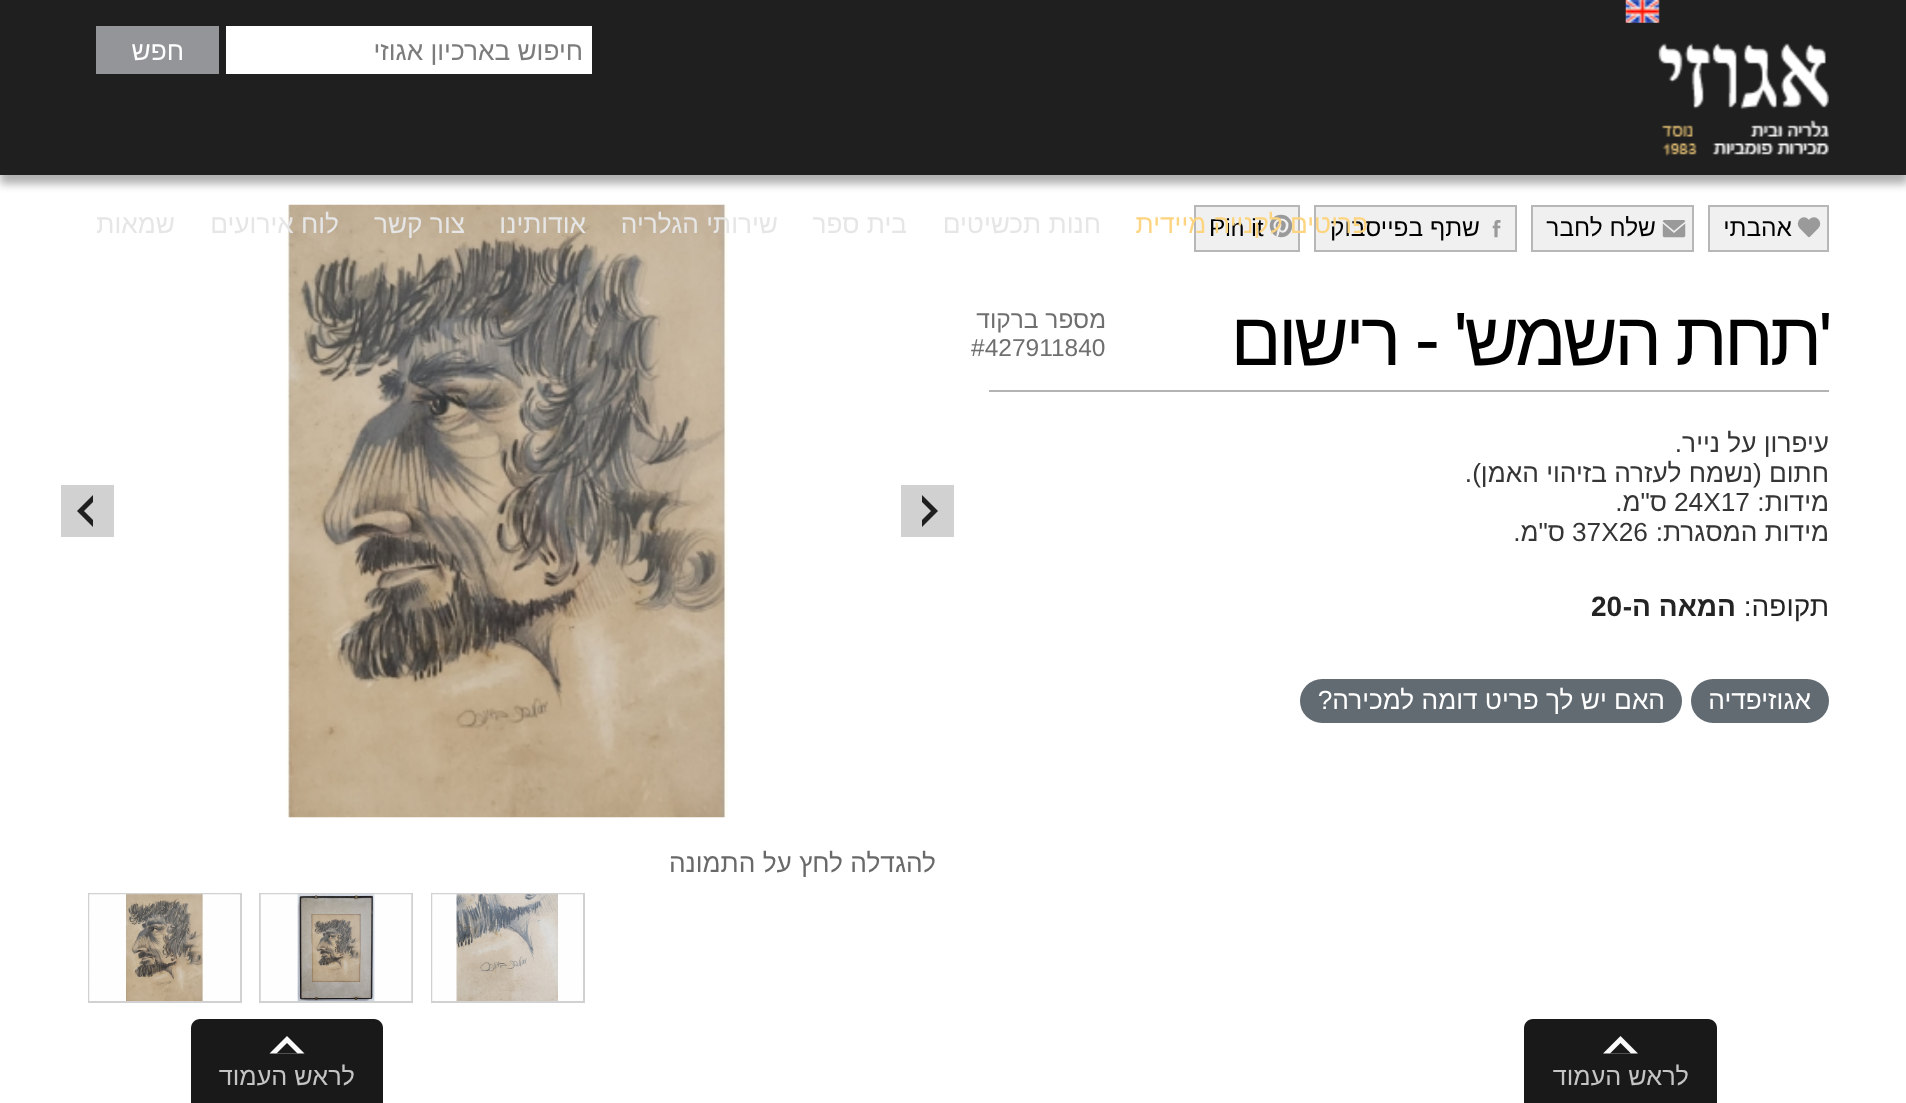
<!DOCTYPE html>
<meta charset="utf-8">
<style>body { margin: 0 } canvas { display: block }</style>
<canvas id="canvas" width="1906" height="1103"></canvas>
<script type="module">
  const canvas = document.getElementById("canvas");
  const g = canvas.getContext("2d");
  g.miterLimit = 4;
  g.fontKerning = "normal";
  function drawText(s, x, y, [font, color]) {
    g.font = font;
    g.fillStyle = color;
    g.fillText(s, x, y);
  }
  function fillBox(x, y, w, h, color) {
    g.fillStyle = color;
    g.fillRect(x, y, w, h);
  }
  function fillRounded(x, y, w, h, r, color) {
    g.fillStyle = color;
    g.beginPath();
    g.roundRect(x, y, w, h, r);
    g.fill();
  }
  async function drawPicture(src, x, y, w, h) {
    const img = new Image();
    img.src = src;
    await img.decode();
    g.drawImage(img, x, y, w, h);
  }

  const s1 = ["26.25px Liberation Sans", "#7C7C7C"];
  const s2 = ["26.25px Liberation Sans", "#FFFFFF"];
  const s3 = ["24.5px Liberation Sans", "#000000"];
  const s4 = ["28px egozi", "#9A9A9A"];
  const s5 = ["26.25px Liberation Sans", "#FDD480"];
  const s6 = ["26.25px Liberation Sans", "#E6E6E6"];
  const s7 = ["75.5px Liberation Sans", "#000000"];
  const s8 = ["24.5px Liberation Sans", "#6F6F6F"];
  const s9 = ["26.25px Liberation Sans", "#353535"];
  const s10 = ["28px Liberation Sans", "#242424"];
  const s11 = ["bold 28px Liberation Sans", "#242424"];
  const s12 = ["26.25px Liberation Sans", "#696969"];
  const s13 = ["25.25px Liberation Sans", "#C4C4C4"];

  fillBox(0, 0, 1906, 1103, "#FFFFFF");
  g.fillStyle = "rgba(0, 0, 0, 0.31)";
  g.filter = "blur(4.5px)";
  g.beginPath();
  g.rect(0, 9, 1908, 175);
  g.fill();
  g.filter = "none";
  fillBox(0, 0, 1906, 175, "#1F1F1F");
  await drawPicture("pic1.png", 1625, 0, 35, 23);
  await drawPicture("pic2.png", 1658, 43, 171, 113);
  fillBox(226, 26, 366, 48, "#FFFFFF");
  g.direction = "rtl";
  drawText("חיפוש בארכיון אגוזי", 583, 60, s1);
  fillBox(96, 26, 123, 48, "#939598");
  drawText("חפש", 184, 60, s2);
  g.fillStyle = "#F0F0F0";
  g.beginPath();
  g.rect(1315, 206, 201, 45);
  g.fill();
  g.strokeStyle = "#B7B7B7";
  g.lineWidth = 2;
  g.stroke();
  drawText("שתף בפייסבוק", 1480, 236, s3);
  g.fillStyle = "#F0F0F0";
  g.beginPath();
  g.rect(1195, 206, 104, 45);
  g.fill();
  g.stroke();
  g.direction = "ltr";
  drawText("h", 1267, 240, s4);
  drawText("Pin it", 1209, 236, s3);
  g.direction = "rtl";
  drawText("פריטים לקנייה מיידית", 1368, 233, s5);
  drawText("חנות תכשיטים", 1101, 233, s6);
  drawText("בית ספר", 907, 233, s6);
  await drawPicture("pic3.png", 287, 204, 441, 614);
  drawText("שירותי הגלריה", 778, 233, s6);
  drawText("אודותינו", 586, 233, s6);
  drawText("צור קשר", 465, 233, s6);
  drawText("לוח אירועים", 339, 233, s6);
  drawText("שמאות", 175, 233, s6);
  g.fillStyle = "#F0F0F0";
  g.beginPath();
  g.rect(1709, 206, 119, 45);
  g.fill();
  g.stroke();
  g.direction = "ltr";
  drawText("e", 1795, 240, s4);
  g.direction = "rtl";
  drawText("אהבתי", 1792, 236, s3);
  g.fillStyle = "#F0F0F0";
  g.beginPath();
  g.rect(1532, 206, 161, 45);
  g.fill();
  g.stroke();
  g.direction = "ltr";
  drawText("f", 1660, 240, s4);
  g.direction = "rtl";
  drawText("שלח לחבר", 1656, 236, s3);
  g.direction = "ltr";
  drawText("g", 1483, 240, s4);
  g.letterSpacing = "-3.75px";
  g.direction = "rtl";
  drawText("'תחת השמש' - רישום", 1829, 365, s7);
  g.letterSpacing = "0px";
  drawText("מספר ברקוד", 1106, 328, s8);
  g.direction = "ltr";
  drawText("#427911840", 971, 356, s8);
  fillBox(989, 390, 840, 2, "#B3B3B3");
  g.direction = "rtl";
  drawText("עיפרון על נייר.", 1829, 452, s9);
  drawText("חתום (נשמח לעזרה בזיהוי האמן).", 1829, 482, s9);
  drawText("מידות:", 1829, 511, s9);
  g.direction = "ltr";
  drawText("24X17", 1674, 511, s9);
  g.direction = "rtl";
  drawText("ס\"מ.", 1667, 511, s9);
  drawText("מידות המסגרת:", 1829, 541, s9);
  g.direction = "ltr";
  drawText("37X26", 1572, 541, s9);
  g.direction = "rtl";
  drawText("ס\"מ.", 1565, 541, s9);
  drawText("תקופה:", 1829, 616, s10);
  drawText("המאה ה-", 1736, 616, s11);
  g.direction = "ltr";
  drawText("20", 1591, 616, s11);
  fillRounded(1691, 679, 138, 44, 22, "#626B72");
  g.direction = "rtl";
  drawText("אגוזיפדיה", 1811, 709, s2);
  fillRounded(1300, 679, 382, 44, 22, "#626B72");
  drawText("האם יש לך פריט דומה למכירה?", 1665, 709, s2);
  fillBox(901, 485, 53, 52, "#D1D1D1");
  g.fillStyle = "#1F1F1F";
  g.beginPath();
  g.moveTo(922, 527);
  g.lineTo(922, 495);
  g.lineTo(938, 511);
  g.closePath();
  g.fill();
  g.fillStyle = "#D1D1D1";
  g.beginPath();
  g.moveTo(922, 520);
  g.lineTo(922, 502);
  g.lineTo(931, 511);
  g.closePath();
  g.fill();
  fillBox(61, 485, 53, 52, "#D1D1D1");
  g.fillStyle = "#1F1F1F";
  g.beginPath();
  g.moveTo(93, 495);
  g.lineTo(93, 527);
  g.lineTo(77, 511);
  g.closePath();
  g.fill();
  g.fillStyle = "#D1D1D1";
  g.beginPath();
  g.moveTo(93, 502);
  g.lineTo(93, 520);
  g.lineTo(84, 511);
  g.closePath();
  g.fill();
  drawText("להגדלה לחץ על התמונה", 936, 872, s12);
  g.strokeStyle = "#D1D1D1";
  g.strokeRect(432, 894, 152, 108);
  await drawPicture("pic4.png", 432, 894, 151, 107);
  g.strokeRect(260, 894, 152, 108);
  await drawPicture("pic5.png", 260, 894, 152, 107);
  g.strokeRect(89, 894, 152, 108);
  await drawPicture("pic6.png", 89, 894, 151, 107);
  g.fillStyle = "#191919";
  g.beginPath();
  g.moveTo(1533, 1019);
  g.lineTo(1708, 1019);
  g.bezierCurveTo(1713, 1019, 1717, 1023, 1717, 1028);
  g.lineTo(1717, 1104);
  g.lineTo(1524, 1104);
  g.lineTo(1524, 1028);
  g.bezierCurveTo(1524, 1023, 1528, 1019, 1533, 1019);
  g.closePath();
  g.fill();
  g.fillStyle = "#FAFAFA";
  g.beginPath();
  g.moveTo(1638, 1053.5);
  g.lineTo(1603, 1053.5);
  g.lineTo(1620.5, 1036);
  g.closePath();
  g.fill();
  g.fillStyle = "#191919";
  g.beginPath();
  g.moveTo(1631, 1053.5);
  g.lineTo(1610, 1053.5);
  g.lineTo(1620.5, 1043);
  g.closePath();
  g.fill();
  drawText("לראש העמוד", 1689, 1085, s13);
  g.fillStyle = "#191919";
  g.beginPath();
  g.moveTo(200, 1019);
  g.lineTo(374, 1019);
  g.bezierCurveTo(379, 1019, 383, 1023, 383, 1028);
  g.lineTo(383, 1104);
  g.lineTo(191, 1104);
  g.lineTo(191, 1028);
  g.bezierCurveTo(191, 1023, 195, 1019, 200, 1019);
  g.closePath();
  g.fill();
  g.fillStyle = "#FAFAFA";
  g.beginPath();
  g.moveTo(304.5, 1053.5);
  g.lineTo(269.5, 1053.5);
  g.lineTo(287, 1036);
  g.closePath();
  g.fill();
  g.fillStyle = "#191919";
  g.beginPath();
  g.moveTo(297.5, 1053.5);
  g.lineTo(276.5, 1053.5);
  g.lineTo(287, 1043);
  g.closePath();
  g.fill();
  drawText("לראש העמוד", 355, 1085, s13);
</script>
